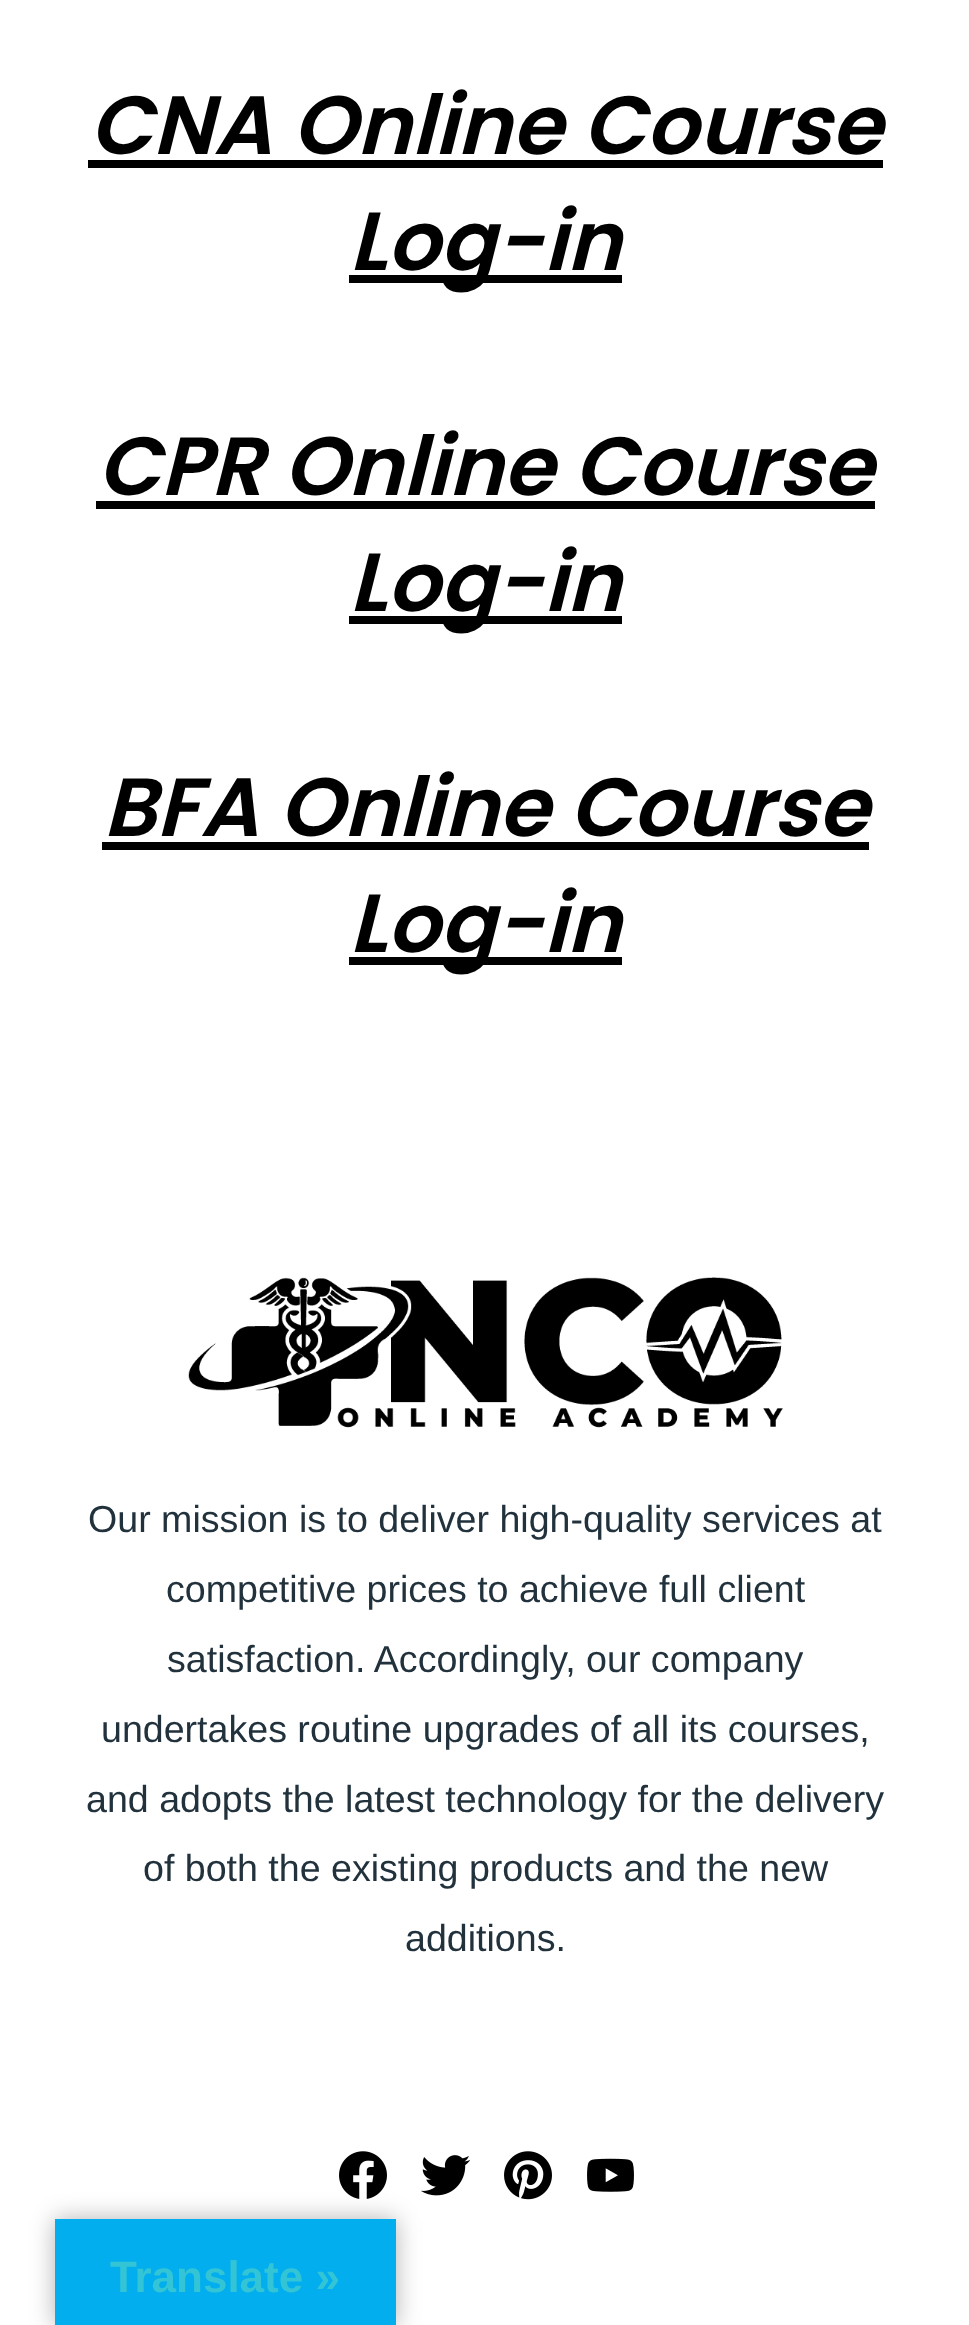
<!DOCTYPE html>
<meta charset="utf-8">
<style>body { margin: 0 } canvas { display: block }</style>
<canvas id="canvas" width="969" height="2325"></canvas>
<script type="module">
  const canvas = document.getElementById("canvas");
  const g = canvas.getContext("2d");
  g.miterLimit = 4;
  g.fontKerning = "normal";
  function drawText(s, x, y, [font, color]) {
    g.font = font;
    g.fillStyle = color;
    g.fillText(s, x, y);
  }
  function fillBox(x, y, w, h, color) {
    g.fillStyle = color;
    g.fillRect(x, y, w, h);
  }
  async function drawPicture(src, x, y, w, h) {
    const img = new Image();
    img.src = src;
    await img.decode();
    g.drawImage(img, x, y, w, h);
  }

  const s1 = ["italic 600 82.5px Poppins", "#000000"];
  const s2 = ["37.6px Liberation Sans", "#22323D"];
  const s3 = ["bold 44px Liberation Sans", "#33C5D6"];

  fillBox(0, 0, 969, 2325, "#FFFFFF");
  drawText("CNA Online Course", 89, 154, s1);
  fillBox(88, 160, 795, 8, "#000000");
  fillBox(349, 275, 273, 8, "#000000");
  drawText("Log-in", 349, 270, s1);
  drawText("CPR Online Course", 97, 495, s1);
  fillBox(96, 501, 779, 8, "#000000");
  fillBox(349, 616, 273, 8, "#000000");
  drawText("Log-in", 349, 611, s1);
  drawText("BFA Online Course", 103, 836, s1);
  fillBox(102, 842, 767, 8, "#000000");
  fillBox(349, 957, 273, 8, "#000000");
  drawText("Log-in", 349, 952, s1);
  await drawPicture("pic1.png", 188, 1277, 595, 151);
  drawText("Our mission is to deliver high-quality services at", 88, 1532, s2);
  drawText("competitive prices to achieve full client", 166, 1602, s2);
  drawText("satisfaction. Accordingly, our company", 167, 1672, s2);
  drawText("undertakes routine upgrades of all its courses,", 101, 1742, s2);
  drawText("and adopts the latest technology for the delivery", 86, 1812, s2);
  drawText("of both the existing products and the new", 143, 1881, s2);
  drawText("additions.", 405, 1951, s2);
  await drawPicture("pic2.png", 339, 2151, 48, 48);
  await drawPicture("pic3.png", 421, 2155, 49, 41);
  await drawPicture("pic4.png", 504, 2151, 48, 49);
  await drawPicture("pic5.png", 587, 2158, 47, 34);
  g.fillStyle = "rgba(0, 0, 0, 0.3)";
  g.filter = "blur(12.5px)";
  g.beginPath();
  g.rect(55, 2219, 341, 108);
  g.fill();
  g.filter = "none";
  fillBox(55, 2219, 341, 106, "#02AEED");
  drawText("Translate »", 110, 2292, s3);
</script>
